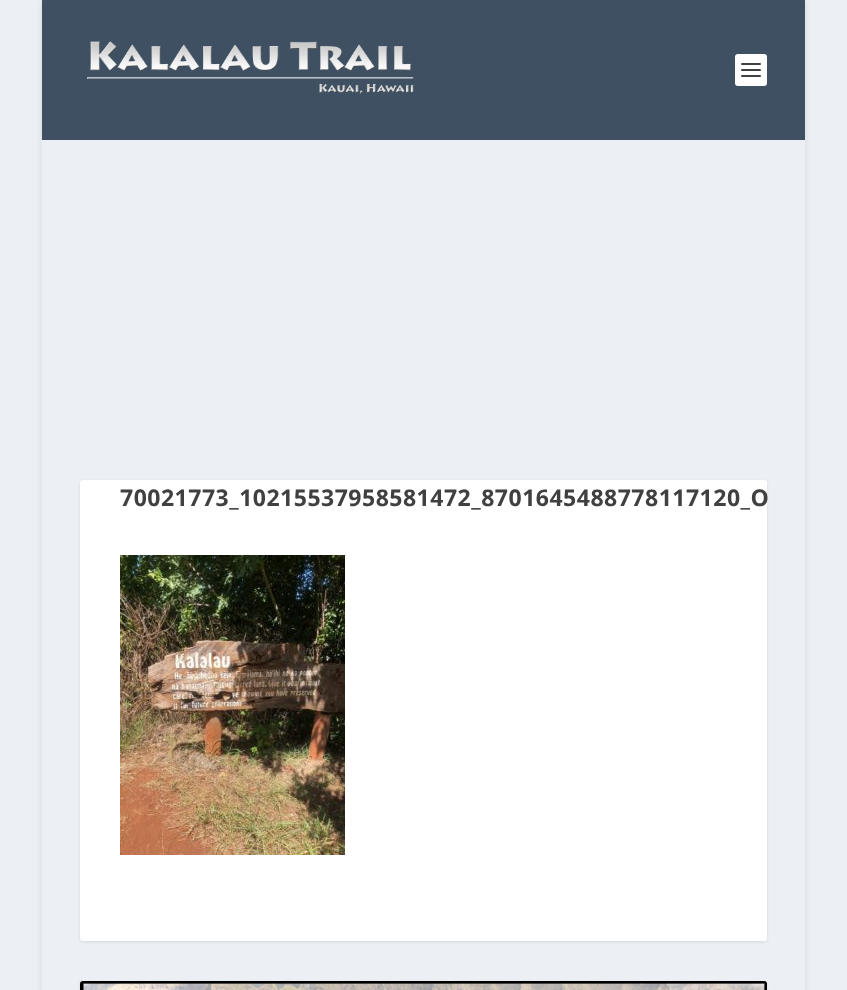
<!DOCTYPE html>
<meta charset="utf-8">
<style>body { margin: 0 } canvas { display: block }</style>
<canvas id="canvas" width="847" height="990"></canvas>
<script type="module">
  const canvas = document.getElementById("canvas");
  const g = canvas.getContext("2d");
  g.miterLimit = 4;
  g.fontKerning = "normal";
  function drawText(s, x, y, [font, color]) {
    g.font = font;
    g.fillStyle = color;
    g.fillText(s, x, y);
  }
  function fillBox(x, y, w, h, color) {
    g.fillStyle = color;
    g.fillRect(x, y, w, h);
  }
  function fillRounded(x, y, w, h, r, color) {
    g.fillStyle = color;
    g.beginPath();
    g.roundRect(x, y, w, h, r);
    g.fill();
  }
  async function drawPicture(src, x, y, w, h) {
    const img = new Image();
    img.src = src;
    await img.decode();
    g.drawImage(img, x, y, w, h);
  }

  const s1 = ["bold 23px Open Sans", "#404040"];

  fillBox(0, 0, 847, 990, "#ECF0F5");
  g.save();
  g.beginPath();
  g.moveTo(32, 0);
  g.lineTo(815, 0);
  g.lineTo(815, 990);
  g.lineTo(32, 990);
  g.closePath();
  g.moveTo(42, 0);
  g.lineTo(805, 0);
  g.lineTo(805, 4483);
  g.lineTo(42, 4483);
  g.closePath();
  g.clip("evenodd");
  g.fillStyle = "rgba(0, 0, 0, 0.1)";
  g.filter = "blur(3px)";
  g.beginPath();
  g.rect(42, 1, 763, 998);
  g.fill();
  g.filter = "none";
  g.restore();
  fillBox(42, 0, 763, 140, "#3E5062");
  await drawPicture("pic1.png", 87, 41, 327, 53);
  fillRounded(735, 54, 32, 32, 3, "#FFFFFF");
  fillRounded(741, 63, 20, 2, 1, "#404040");
  fillRounded(741, 69, 20, 2, 1, "#404040");
  fillRounded(741, 75, 20, 2, 1, "#404040");
  g.fillStyle = "rgba(0, 0, 0, 0.1)";
  g.filter = "blur(1.5px)";
  g.beginPath();
  g.roundRect(80, 481, 687, 461, 3);
  g.fill();
  g.filter = "none";
  fillRounded(80, 480, 687, 461, 3, "#FFFFFF");
  g.letterSpacing = "0.5px";
  drawText("70021773_10215537958581472_8701645488778117120_O", 120, 506, s1);
  await drawPicture("pic2.png", 120, 555, 225, 300);
  g.fillStyle = "rgba(0, 0, 0, 0.1)";
  g.filter = "blur(1.5px)";
  g.beginPath();
  g.roundRect(80, 982, 687, 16, 3);
  g.fill();
  g.filter = "none";
  await drawPicture("pic3.png", 80, 981, 687, 9);
</script>
